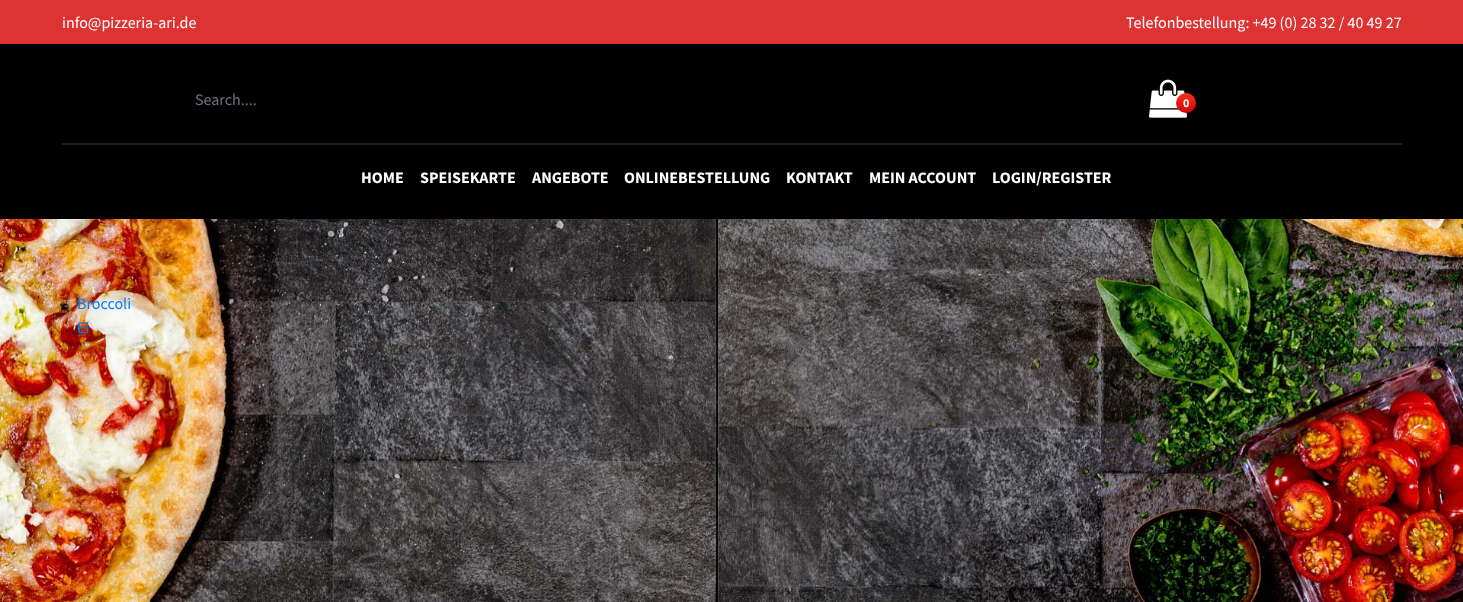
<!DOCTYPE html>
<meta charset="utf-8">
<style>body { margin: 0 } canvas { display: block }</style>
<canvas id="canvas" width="1463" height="602"></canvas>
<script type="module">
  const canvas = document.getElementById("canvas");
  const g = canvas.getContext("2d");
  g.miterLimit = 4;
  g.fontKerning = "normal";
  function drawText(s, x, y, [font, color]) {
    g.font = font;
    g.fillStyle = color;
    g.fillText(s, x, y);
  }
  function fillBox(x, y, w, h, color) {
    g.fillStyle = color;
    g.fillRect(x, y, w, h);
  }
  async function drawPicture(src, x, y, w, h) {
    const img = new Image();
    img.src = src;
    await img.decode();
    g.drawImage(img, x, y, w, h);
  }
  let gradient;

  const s1 = ["16px Source Sans Pro", "#FFFFFF"];
  const s2 = ["16px Source Sans Pro", "#6C757D"];
  const s3 = ["bold 12px Source Sans Pro", "#FFFFFF"];
  const s4 = ["bold 16px Source Sans Pro", "#FFFFFF"];
  const s5 = ["16px Source Sans Pro", "#007BFF"];

  fillBox(0, 0, 1463, 602, "#FFFFFF");
  await drawPicture("pic1.png", 0, 219, 1463, 383);
  fillBox(0, 0, 1463, 44, "#DD3333");
  drawText("info@pizzeria-ari.de", 62, 28, s1);
  drawText("Telefonbestellung: +49 (0) 28 32 / 40 49 27", 1126, 28, s1);
  fillBox(0, 44, 1463, 175, "#000000");
  fillBox(62, 143, 1340, 2, "#1E1E1E");
  drawText("Search....", 195, 105, s2);
  await drawPicture("pic2.png", 1149, 79, 38, 39);
  gradient = g.createLinearGradient(1186, 93, 1186, 113);
  gradient.addColorStop(0, "#FF3019");
  gradient.addColorStop(1, "#CF0404");
  g.fillStyle = gradient;
  g.beginPath();
  g.arc(1186, 103, 10, 0, Math.PI * 2);
  g.fill();
  drawText("0", 1183, 107, s3);
  drawText("HOME", 361, 183, s4);
  drawText("SPEISEKARTE", 420, 183, s4);
  drawText("ANGEBOTE", 532, 183, s4);
  drawText("ONLINEBESTELLUNG", 624, 183, s4);
  drawText("KONTAKT", 786, 183, s4);
  drawText("MEIN ACCOUNT", 869, 183, s4);
  drawText("LOGIN/REGISTER", 992, 183, s4);
  drawText("Broccoli", 77, 309, s5);
  drawText("Ei", 77, 333, s5);
</script>
